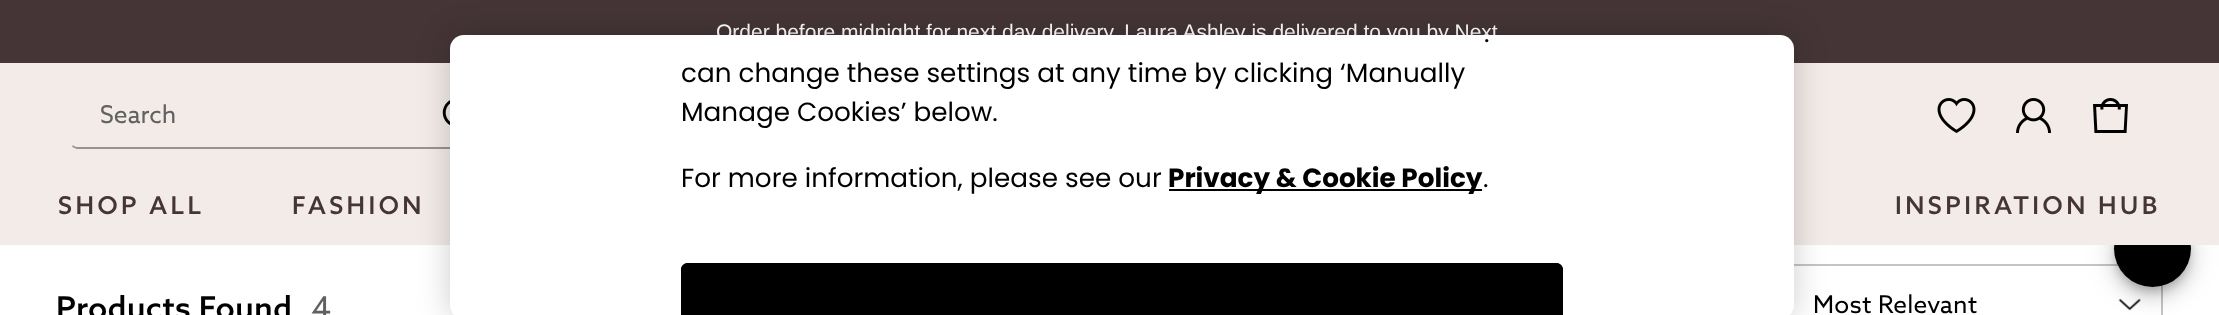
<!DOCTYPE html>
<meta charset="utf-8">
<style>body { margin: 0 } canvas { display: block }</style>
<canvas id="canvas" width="2219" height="315"></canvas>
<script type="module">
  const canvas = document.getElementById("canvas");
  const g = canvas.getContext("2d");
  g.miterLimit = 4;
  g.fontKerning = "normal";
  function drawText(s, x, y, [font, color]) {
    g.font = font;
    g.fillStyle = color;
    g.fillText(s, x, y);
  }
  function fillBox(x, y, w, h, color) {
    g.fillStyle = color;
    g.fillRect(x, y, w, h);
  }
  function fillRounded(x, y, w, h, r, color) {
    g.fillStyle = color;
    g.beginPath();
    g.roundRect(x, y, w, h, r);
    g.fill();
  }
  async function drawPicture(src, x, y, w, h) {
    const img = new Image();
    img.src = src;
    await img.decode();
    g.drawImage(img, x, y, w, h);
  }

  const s1 = ["21px Liberation Sans", "#FFFFFF"];
  const s2 = ["24.5px 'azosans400'", "#616161"];
  const s3 = ["600 24.5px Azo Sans", "#453536"];
  const s4 = ["26.25px Poppins", "#000000"];
  const s5 = ["bold 26.25px Poppins", "#000000"];
  const s6 = ["600 31.5px Azo Sans", "#000000"];
  const s7 = ["31.5px 'azosans400'", "#616161"];
  const s8 = ["24.5px 'azosans400'", "#000000"];

  fillBox(0, 0, 2219, 315, "#FFFFFF");
  fillBox(0, 0, 2219, 63, "#453536");
  drawText("Order before midnight for next day delivery. Laura Ashley is delivered to you by Next", 716, 39, s1);
  await drawPicture("pic5.png", 2118, 298, 23, 13);
  g.strokeStyle = "#C4C4C4";
  g.lineWidth = 2;
  g.strokeRect(1786, 265, 376, 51);
  g.fillStyle = "rgba(0, 0, 0, 0.12)";
  g.filter = "blur(16px)";
  g.beginPath();
  g.roundRect(2114, 212, 77, 77, 38.5);
  g.fill();
  g.filter = "none";
  g.fillStyle = "rgba(0, 0, 0, 0.14)";
  g.filter = "blur(9px)";
  g.beginPath();
  g.roundRect(2114, 221, 77, 77, 38.5);
  g.fill();
  g.filter = "none";
  g.fillStyle = "rgba(0, 0, 0, 0.2)";
  g.filter = "blur(4.5px)";
  g.beginPath();
  g.roundRect(2116, 217, 73, 74, 36.5);
  g.fill();
  g.filter = "none";
  g.fillStyle = "#000000";
  g.beginPath();
  g.arc(2152.5, 248.5, 38.5, 0, Math.PI * 2);
  g.fill();
  fillBox(0, 63, 2219, 182, "#F2EBE7");
  g.beginPath();
  g.moveTo(491, 146);
  g.bezierCurveTo(489.5, 147, 488, 148, 486.5, 148);
  g.lineTo(77, 148);
  g.bezierCurveTo(75.5, 148, 74, 147, 72.5, 146);
  g.strokeStyle = "#949494";
  g.lineWidth = 1.8;
  g.stroke();
  drawText("Search", 100, 123, s2);
  fillRounded(429, 84, 63, 63, 7, "#F2EBE7");
  await drawPicture("pic1.png", 442, 100, 8, 25);
  await drawPicture("pic2.png", 1937, 98, 39, 35);
  await drawPicture("pic3.png", 2016, 98, 35, 35);
  await drawPicture("pic4.png", 2093, 98, 35, 35);
  g.letterSpacing = "3.5px";
  drawText("SHOP ALL", 58, 214, s3);
  drawText("FASHION", 292, 214, s3);
  drawText("INSPIRATION HUB", 1895, 214, s3);
  g.fillStyle = "rgba(0, 0, 0, 0.2)";
  g.filter = "blur(16px)";
  g.beginPath();
  g.roundRect(450, 35, 1344, 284, 14);
  g.fill();
  g.filter = "none";
  fillRounded(450, 35, 1344, 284, 14, "#FFFFFF");
  g.letterSpacing = "0px";
  drawText(".", 1484, 42, s4);
  drawText("can change these settings at any time by clicking ‘Manually", 681, 82, s4);
  drawText("Manage Cookies’ below.", 681, 121, s4);
  drawText("For more information, please see our", 681, 187, s4);
  fillBox(1169, 189, 313, 2, "#000000");
  drawText("Privacy & Cookie Policy", 1168, 187, s5);
  drawText(".", 1483, 187, s4);
  g.beginPath();
  g.moveTo(688, 263);
  g.lineTo(1556, 263);
  g.bezierCurveTo(1560, 263, 1563, 266, 1563, 270);
  g.lineTo(1563, 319);
  g.lineTo(681, 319);
  g.lineTo(681, 270);
  g.bezierCurveTo(681, 266, 684, 263, 688, 263);
  g.closePath();
  g.fill();
  g.beginPath();
  g.moveTo(688, 263);
  g.bezierCurveTo(684, 263, 681, 266, 681, 270);
  g.lineTo(681, 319);
  g.lineTo(683, 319);
  g.lineTo(683, 270);
  g.bezierCurveTo(683, 267, 685, 265, 688, 265);
  g.lineTo(1556, 265);
  g.bezierCurveTo(1559, 265, 1561, 267, 1561, 270);
  g.lineTo(1561, 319);
  g.lineTo(1563, 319);
  g.lineTo(1563, 270);
  g.bezierCurveTo(1563, 266, 1560, 263, 1556, 263);
  g.closePath();
  g.fill();
  g.letterSpacing = "0.25px";
  drawText("Products Found", 56, 319, s6);
  drawText("4", 311, 319, s7);
  drawText("Most Relevant", 1813, 313, s8);
</script>
